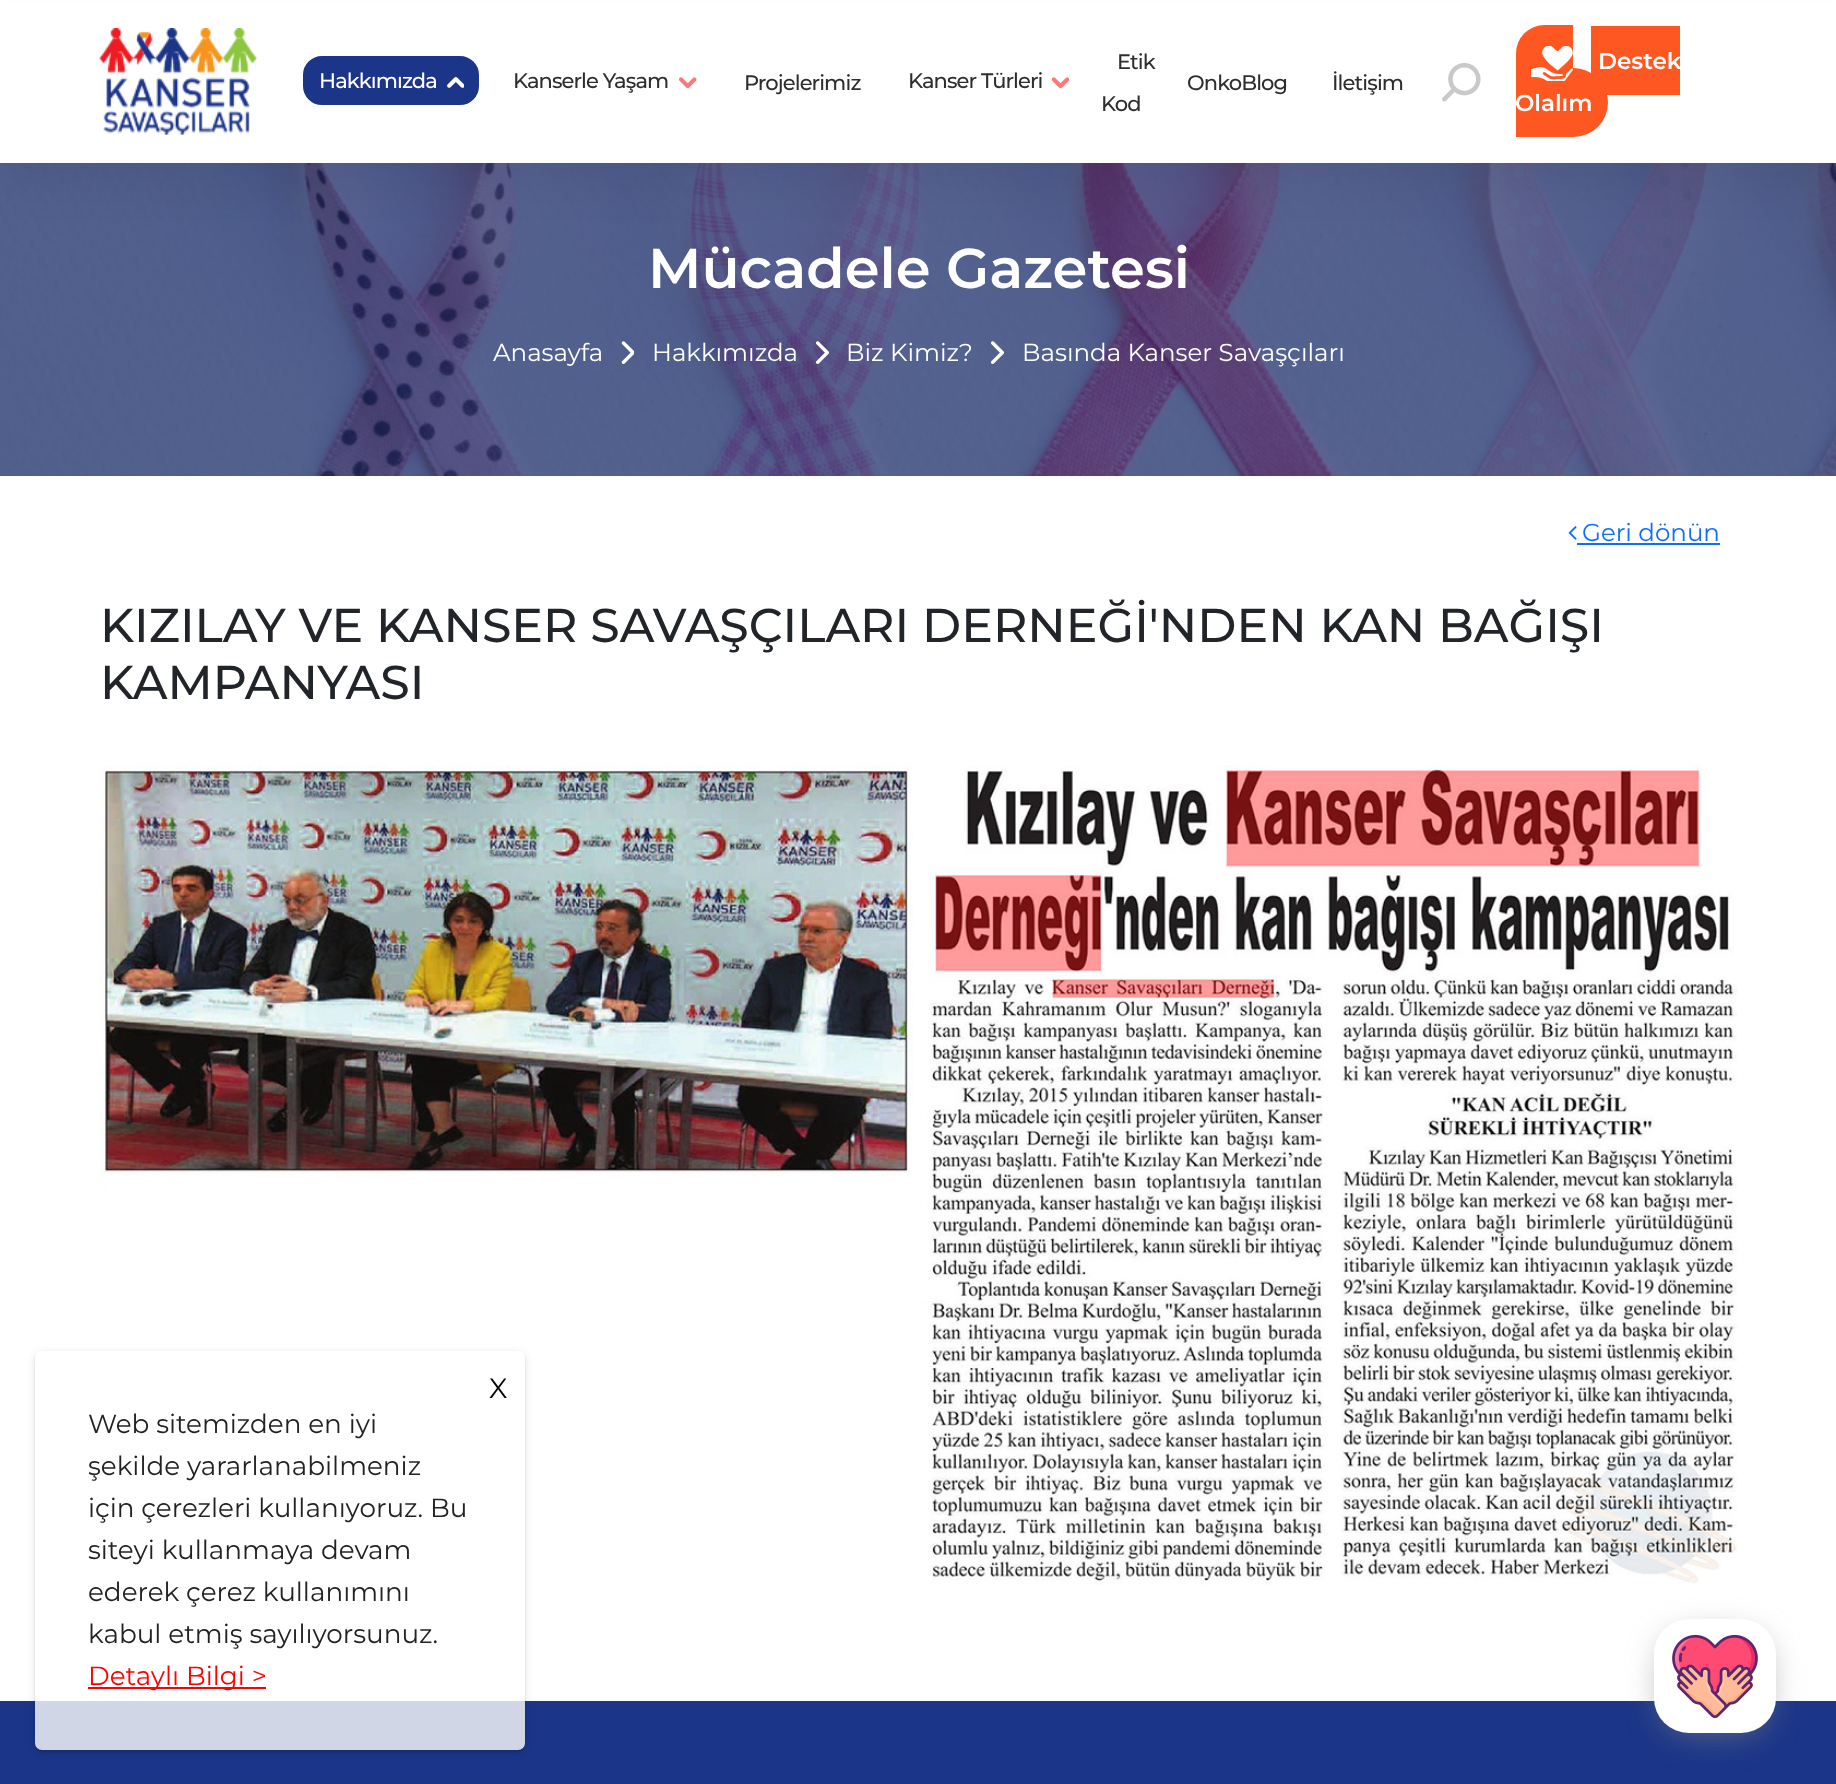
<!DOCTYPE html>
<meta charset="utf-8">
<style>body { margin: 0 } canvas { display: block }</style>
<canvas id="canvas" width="1836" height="1784"></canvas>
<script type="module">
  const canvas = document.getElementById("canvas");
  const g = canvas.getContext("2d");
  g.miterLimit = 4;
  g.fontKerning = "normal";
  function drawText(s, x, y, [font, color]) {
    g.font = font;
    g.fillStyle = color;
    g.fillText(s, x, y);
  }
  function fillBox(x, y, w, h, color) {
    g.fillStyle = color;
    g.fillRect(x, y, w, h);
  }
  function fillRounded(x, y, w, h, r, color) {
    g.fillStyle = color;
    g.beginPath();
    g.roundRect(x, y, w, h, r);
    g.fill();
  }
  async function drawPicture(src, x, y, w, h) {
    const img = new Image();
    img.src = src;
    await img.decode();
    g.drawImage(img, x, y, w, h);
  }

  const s1 = ["500 21px Montserrat", "#FFFFFF"];
  const s2 = ["500 21px Montserrat", "#2E2E2E"];
  const s3 = ["600 23px Montserrat", "#FFFFFF"];
  const s4 = ["600 56px Montserrat", "#FFFFFF"];
  const s5 = ["24.5px Montserrat", "#FFFFFF"];
  const s6 = ["24.5px Montserrat", "#0D6EFD"];
  const s7 = ["500 47.4px Montserrat", "#212529"];
  const s8 = ["28px Montserrat", "#000000"];
  const s9 = ["26.25px Montserrat", "#222222"];
  const s10 = ["26.25px Montserrat", "#FF0002"];

  fillBox(0, 0, 1836, 1784, "#FFFFFF");
  await drawPicture("pic7.png", 0, 163, 1836, 313);
  g.fillStyle = "rgba(0, 0, 0, 0.06)";
  g.filter = "blur(21px)";
  g.beginPath();
  g.rect(0, 21, 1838, 163);
  g.fill();
  g.filter = "none";
  fillBox(0, 1, 1836, 162, "#FFFFFF");
  await drawPicture("pic1.png", 99, 28, 159, 107);
  g.fillStyle = "#1B3588";
  g.beginPath();
  g.roundRect(302, 55, 178, 51, 20);
  g.fill();
  g.strokeStyle = "#FFFFFF";
  g.lineWidth = 2;
  g.stroke();
  g.letterSpacing = "-0.9px";
  drawText("Hakkımızda", 319, 88, s1);
  await drawPicture("pic2.png", 447, 77, 17, 11);
  drawText("Kanserle Yaşam", 513, 88, s2);
  await drawPicture("pic3.png", 679, 77, 18, 11);
  drawText("Projelerimiz", 744, 90, s2);
  drawText("Kanser Türleri", 908, 88, s2);
  await drawPicture("pic4.png", 1052, 77, 17, 11);
  drawText("Etik", 1117, 69, s2);
  drawText("Kod", 1101, 111, s2);
  drawText("OnkoBlog", 1187, 90, s2);
  drawText("İletişim", 1332, 90, s2);
  await drawPicture("pic5.png", 1442, 63, 39, 39);
  g.fillStyle = "#FF5722";
  g.beginPath();
  g.roundRect(1516, 25, 57, 77, [28.5, 0, 0, 28.5]);
  g.fill();
  fillBox(1591, 26, 89, 69, "#FF5722");
  g.beginPath();
  g.roundRect(1516, 68, 92, 69, [0, 34.5, 34.5, 0]);
  g.fill();
  await drawPicture("pic6.png", 1531, 46, 42, 35);
  g.letterSpacing = "0px";
  drawText("Destek", 1598, 69, s3);
  drawText("Olalım", 1515, 111, s3);
  drawText("Mücadele Gazetesi", 648, 288, s4);
  drawText("Anasayfa", 493, 361, s5);
  await drawPicture("pic8.png", 621, 341, 13, 23);
  drawText("Hakkımızda", 652, 361, s5);
  await drawPicture("pic9.png", 816, 341, 13, 23);
  drawText("Biz Kimiz?", 846, 361, s5);
  await drawPicture("pic10.png", 991, 341, 13, 23);
  drawText("Basında Kanser Savaşçıları", 1022, 361, s5);
  await drawPicture("pic11.png", 1568, 526, 9, 14);
  drawText("Geri dönün", 1582, 541, s6);
  fillBox(1577, 543, 143, 2, "#0D6EFD");
  drawText("KIZILAY VE KANSER SAVAŞÇILARI DERNEĞİ'NDEN KAN BAĞIŞI", 100, 642, s7);
  drawText("KAMPANYASI", 100, 699, s7);
  await drawPicture("pic12.png", 100, 765, 1638, 820);
  fillBox(0, 1701, 1836, 83, "#1B3588");
  g.save();
  g.beginPath();
  g.moveTo(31, 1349);
  g.lineTo(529, 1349);
  g.lineTo(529, 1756);
  g.lineTo(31, 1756);
  g.closePath();
  g.moveTo(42, 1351);
  g.lineTo(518, 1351);
  g.bezierCurveTo(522, 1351, 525, 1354, 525, 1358);
  g.lineTo(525, 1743);
  g.bezierCurveTo(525, 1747, 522, 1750, 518, 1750);
  g.lineTo(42, 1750);
  g.bezierCurveTo(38, 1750, 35, 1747, 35, 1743);
  g.lineTo(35, 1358);
  g.bezierCurveTo(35, 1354, 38, 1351, 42, 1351);
  g.closePath();
  g.clip("evenodd");
  g.fillStyle = "rgba(0, 0, 0, 0.1)";
  g.filter = "blur(1px)";
  g.beginPath();
  g.roundRect(35, 1353, 490, 399, 7);
  g.fill();
  g.filter = "none";
  g.restore();
  g.save();
  g.beginPath();
  g.moveTo(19, 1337);
  g.lineTo(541, 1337);
  g.lineTo(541, 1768);
  g.lineTo(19, 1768);
  g.closePath();
  g.moveTo(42, 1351);
  g.lineTo(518, 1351);
  g.bezierCurveTo(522, 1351, 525, 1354, 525, 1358);
  g.lineTo(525, 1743);
  g.bezierCurveTo(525, 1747, 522, 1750, 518, 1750);
  g.lineTo(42, 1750);
  g.bezierCurveTo(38, 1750, 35, 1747, 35, 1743);
  g.lineTo(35, 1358);
  g.bezierCurveTo(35, 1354, 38, 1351, 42, 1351);
  g.closePath();
  g.clip("evenodd");
  g.fillStyle = "rgba(0, 0, 0, 0.1)";
  g.filter = "blur(5px)";
  g.beginPath();
  g.roundRect(35, 1353, 490, 399, 7);
  g.fill();
  g.filter = "none";
  g.restore();
  fillRounded(35, 1351, 490, 399, 7, "rgba(255, 255, 255, 0.8)");
  drawText("X", 489, 1398, s8);
  drawText("Web sitemizden en iyi", 88, 1433, s9);
  drawText("şekilde yararlanabilmeniz", 88, 1475, s9);
  drawText("için çerezleri kullanıyoruz. Bu", 88, 1517, s9);
  drawText("siteyi kullanmaya devam", 88, 1559, s9);
  drawText("ederek çerez kullanımını", 88, 1601, s9);
  drawText("kabul etmiş sayılıyorsunuz.", 88, 1643, s9);
  fillBox(88, 1687, 178, 2, "#FF0002");
  drawText("Detaylı Bilgi >", 88, 1685, s10);
  g.fillStyle = "rgba(133, 133, 133, 0.75)";
  g.filter = "blur(17.5px)";
  g.beginPath();
  g.roundRect(1664, 1638, 102, 93, 25);
  g.fill();
  g.filter = "none";
  fillRounded(1654, 1619, 122, 114, 35, "#FFFFFF");
  await drawPicture("pic13.png", 1672, 1634, 86, 85);
</script>
